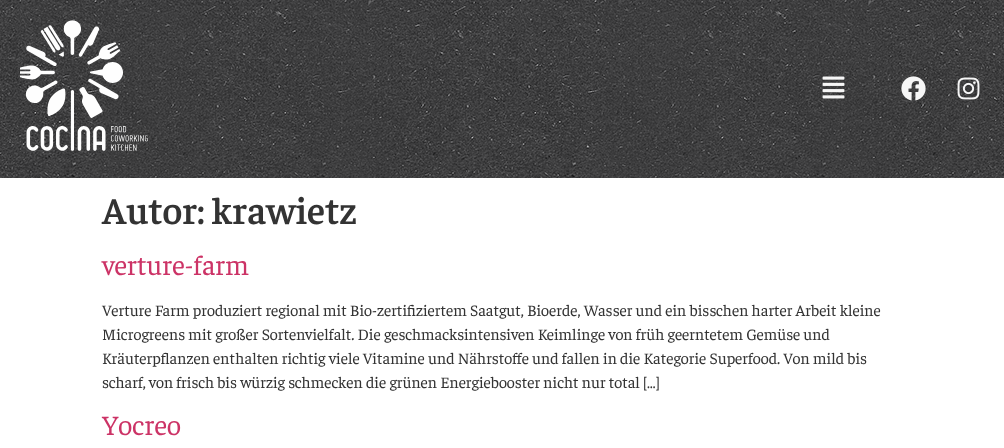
<!DOCTYPE html>
<meta charset="utf-8">
<style>body { margin: 0 } canvas { display: block }</style>
<canvas id="canvas" width="1004" height="448"></canvas>
<script type="module">
  const canvas = document.getElementById("canvas");
  const g = canvas.getContext("2d");
  g.miterLimit = 4;
  g.fontKerning = "normal";
  function drawText(s, x, y, [font, color]) {
    g.font = font;
    g.fillStyle = color;
    g.fillText(s, x, y);
  }
  function fillBox(x, y, w, h, color) {
    g.fillStyle = color;
    g.fillRect(x, y, w, h);
  }
  async function drawPicture(src, x, y, w, h) {
    const img = new Image();
    img.src = src;
    await img.decode();
    g.drawImage(img, x, y, w, h);
  }

  const s1 = ["600 38px Faustina", "#333333"];
  const s2 = ["28px Faustina", "#CC3366"];
  const s3 = ["16px Faustina", "#333333"];

  fillBox(0, 0, 1004, 448, "#FFFFFF");
  await drawPicture("pic1.png", 0, 0, 1004, 178);
  await drawPicture("pic2.png", 20, 20, 128, 131);
  await drawPicture("pic3.png", 822, 76, 23, 23);
  await drawPicture("pic4.png", 901, 76, 25, 25);
  await drawPicture("pic5.png", 957, 77, 23, 23);
  drawText("Autor: krawietz", 102, 224, s1);
  drawText("verture-farm", 102, 275, s2);
  drawText("Verture Farm produziert regional mit Bio-zertifiziertem Saatgut, Bioerde, Wasser und ein bisschen harter Arbeit kleine", 102, 316, s3);
  drawText("Microgreens mit großer Sortenvielfalt. Die geschmacksintensiven Keimlinge von früh geerntetem Gemüse und", 102, 340, s3);
  drawText("Kräuterpflanzen enthalten richtig viele Vitamine und Nährstoffe und fallen in die Kategorie Superfood. Von mild bis", 102, 364, s3);
  drawText("scharf, von frisch bis würzig schmecken die grünen Energiebooster nicht nur total […]", 102, 388, s3);
  drawText("Yocreo", 102, 435, s2);
</script>
